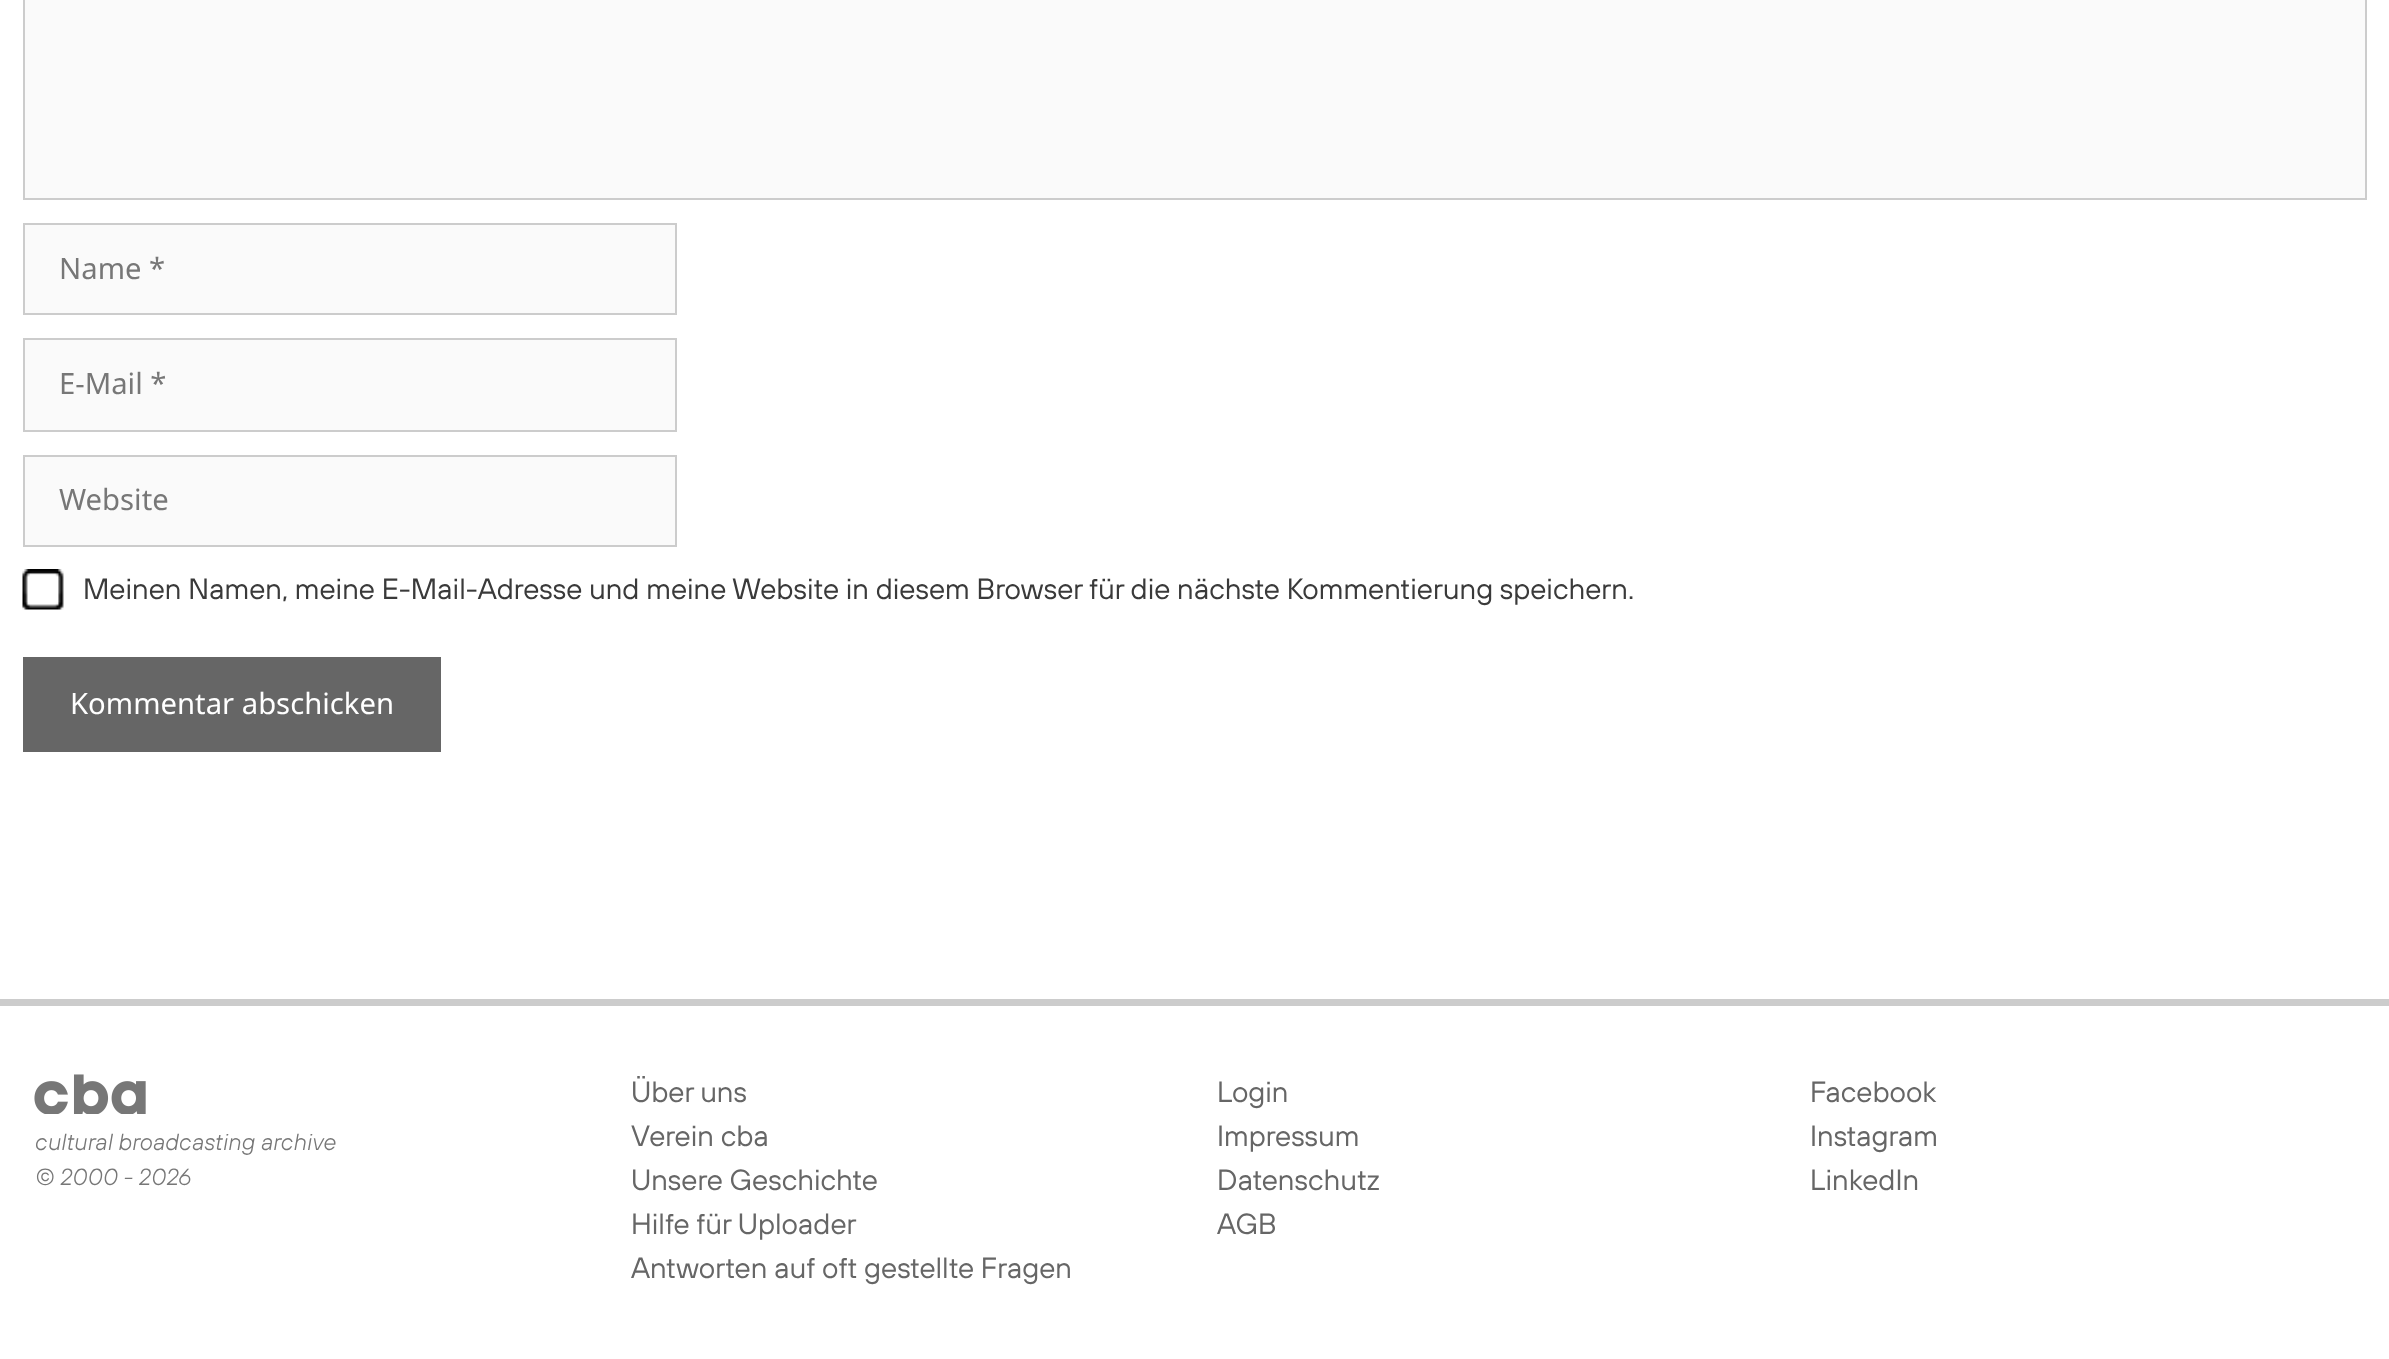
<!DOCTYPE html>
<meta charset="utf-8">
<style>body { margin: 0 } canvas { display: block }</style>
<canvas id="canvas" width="2389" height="1359"></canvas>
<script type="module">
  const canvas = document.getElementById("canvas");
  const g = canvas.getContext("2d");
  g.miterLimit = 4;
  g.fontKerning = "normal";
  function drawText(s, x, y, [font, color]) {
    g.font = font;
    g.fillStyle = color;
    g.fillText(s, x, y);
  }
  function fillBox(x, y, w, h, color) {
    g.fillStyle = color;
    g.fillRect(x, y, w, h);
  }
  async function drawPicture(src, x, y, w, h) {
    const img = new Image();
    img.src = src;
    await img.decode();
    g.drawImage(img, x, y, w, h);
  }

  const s1 = ["29.25px Noto Sans", "#777777"];
  const s2 = ["29.25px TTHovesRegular", "#3A3A3A"];
  const s3 = ["29.25px Noto Sans", "#FFFFFF"];
  const s4 = ["23.4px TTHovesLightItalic", "#777777"];
  const s5 = ["29.25px TTHovesRegular", "#666666"];

  fillBox(0, 0, 2389, 1359, "#FFFFFF");
  g.fillStyle = "#FAFAFA";
  g.beginPath();
  g.rect(24, -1, 2342, 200);
  g.fill();
  g.strokeStyle = "#CCCCCC";
  g.lineWidth = 2;
  g.stroke();
  g.beginPath();
  g.rect(24, 224, 652, 90);
  g.fill();
  g.stroke();
  drawText("Name *", 59, 279, s1);
  g.fillStyle = "#FAFAFA";
  g.beginPath();
  g.rect(24, 339, 652, 92);
  g.fill();
  g.stroke();
  drawText("E-Mail *", 59, 394, s1);
  g.fillStyle = "#FAFAFA";
  g.beginPath();
  g.rect(24, 456, 652, 90);
  g.fill();
  g.stroke();
  drawText("Website", 59, 510, s1);
  await drawPicture("pic1.png", 22, 569, 42, 41);
  drawText("Meinen Namen, meine E-Mail-Adresse und meine Website in diesem Browser für die nächste Kommentierung speichern.", 83, 599, s2);
  fillBox(23, 657, 418, 95, "#666666");
  drawText("Kommentar abschicken", 70, 714, s3);
  fillBox(0, 999, 2389, 7, "#CCCCCC");
  await drawPicture("pic2.png", 34, 1074, 112, 40);
  drawText("cultural broadcasting archive", 34, 1150, s4);
  drawText("© 2000 - 2026", 34, 1185, s4);
  drawText("Über uns", 631, 1102, s5);
  drawText("Verein cba", 631, 1146, s5);
  drawText("Unsere Geschichte", 631, 1190, s5);
  drawText("Hilfe für Uploader", 631, 1234, s5);
  drawText("Antworten auf oft gestellte Fragen", 631, 1278, s5);
  drawText("Login", 1217, 1102, s5);
  drawText("Impressum", 1217, 1146, s5);
  drawText("Datenschutz", 1217, 1190, s5);
  drawText("AGB", 1217, 1234, s5);
  drawText("Facebook", 1810, 1102, s5);
  drawText("Instagram", 1810, 1146, s5);
  drawText("LinkedIn", 1810, 1190, s5);
</script>
